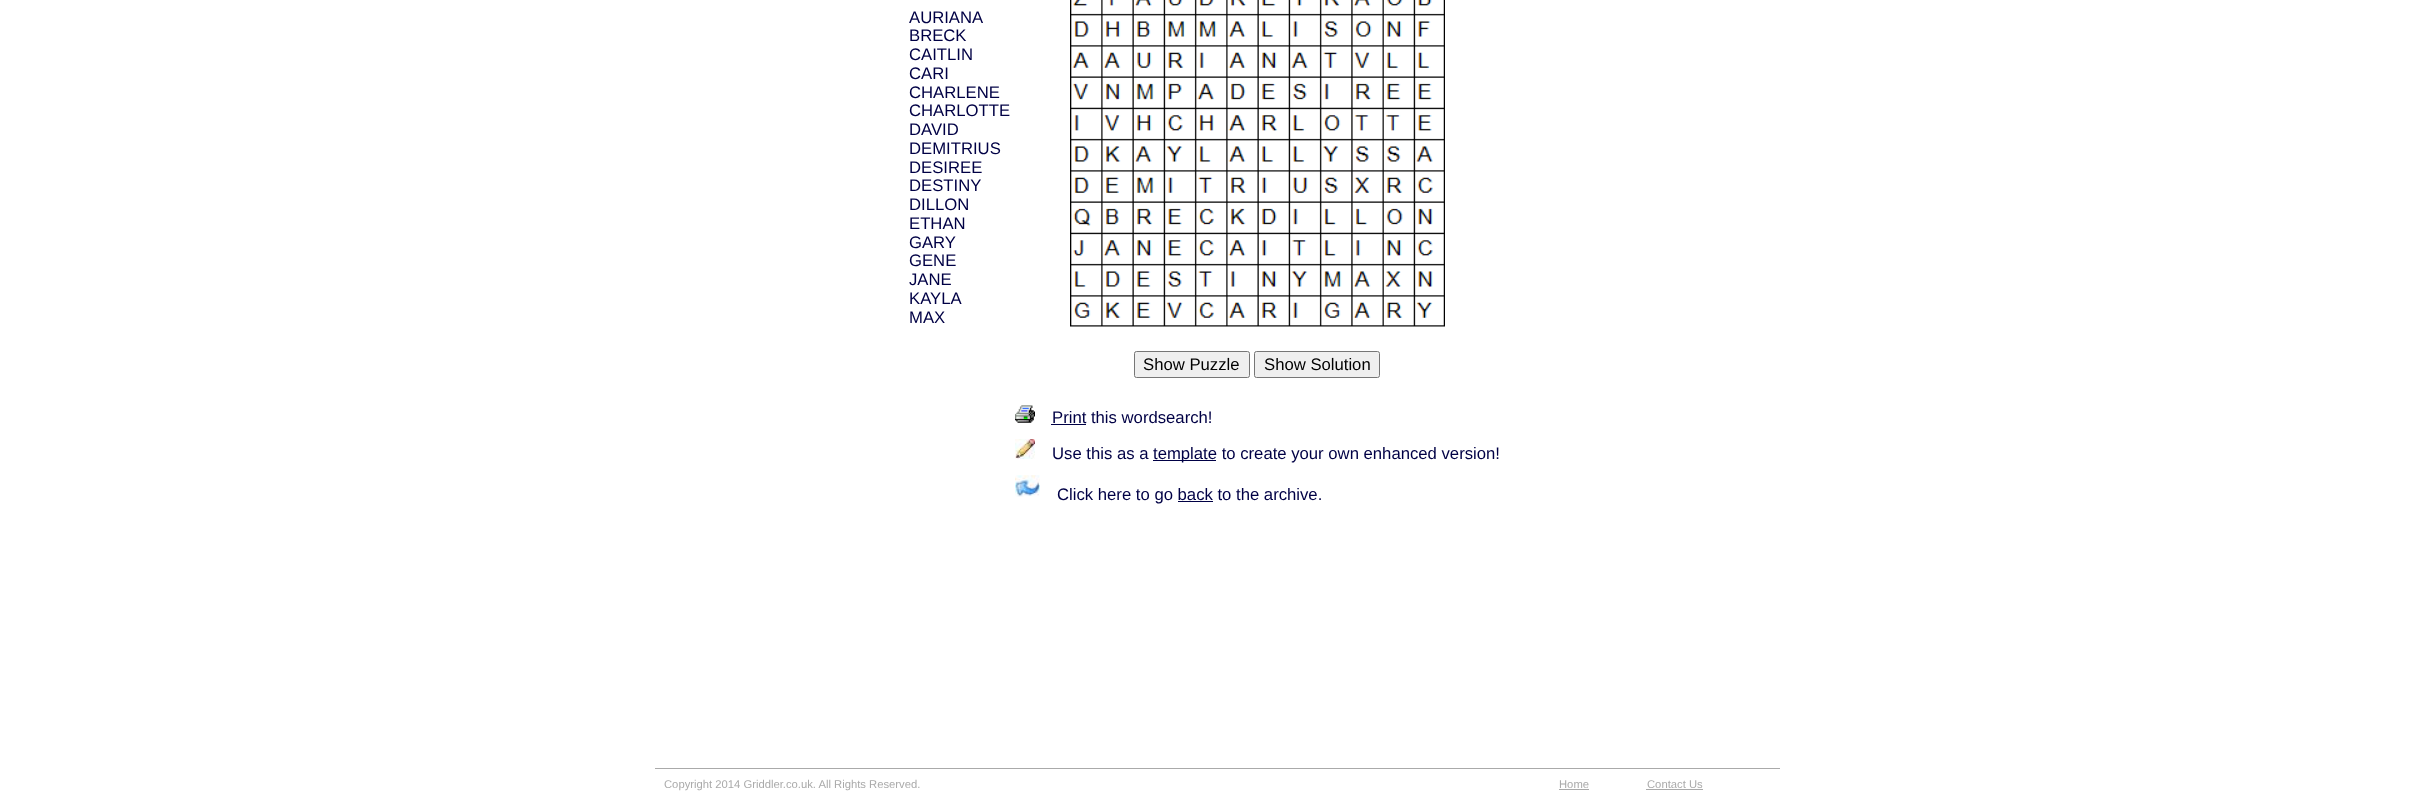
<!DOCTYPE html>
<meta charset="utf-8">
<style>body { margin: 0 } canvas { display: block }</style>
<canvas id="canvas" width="2434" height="798"></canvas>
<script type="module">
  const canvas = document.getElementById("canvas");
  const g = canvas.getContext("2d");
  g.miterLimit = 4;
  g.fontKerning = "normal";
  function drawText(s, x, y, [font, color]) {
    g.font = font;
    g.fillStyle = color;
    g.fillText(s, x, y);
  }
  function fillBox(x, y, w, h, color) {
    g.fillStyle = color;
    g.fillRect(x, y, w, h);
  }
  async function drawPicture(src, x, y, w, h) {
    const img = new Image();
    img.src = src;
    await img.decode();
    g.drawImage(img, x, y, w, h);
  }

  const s1 = ["16.7px Liberation Sans", "#000045"];
  const s2 = ["16.7px Liberation Sans", "#000000"];
  const s3 = ["11.25px Liberation Sans", "#AAAAAA"];

  fillBox(0, 0, 2434, 798, "#FFFFFF");
  drawText("AURIANA", 909, 23, s1);
  drawText("BRECK", 909, 41, s1);
  drawText("CAITLIN", 909, 60, s1);
  drawText("CARI", 909, 79, s1);
  drawText("CHARLENE", 909, 98, s1);
  drawText("CHARLOTTE", 909, 116, s1);
  drawText("DAVID", 909, 135, s1);
  drawText("DEMITRIUS", 909, 154, s1);
  drawText("DESIREE", 909, 173, s1);
  drawText("DESTINY", 909, 191, s1);
  drawText("DILLON", 909, 210, s1);
  drawText("ETHAN", 909, 229, s1);
  drawText("GARY", 909, 248, s1);
  drawText("GENE", 909, 266, s1);
  drawText("JANE", 909, 285, s1);
  drawText("KAYLA", 909, 304, s1);
  drawText("MAX", 909, 323, s1);
  await drawPicture("pic1.png", 1070, 0, 375, 327);
  g.fillStyle = "#EFEFEF";
  g.beginPath();
  g.roundRect(1134.5, 351.5, 115, 26, 2);
  g.fill();
  g.strokeStyle = "#767676";
  g.stroke();
  drawText("Show Puzzle", 1143, 370, s2);
  g.fillStyle = "#EFEFEF";
  g.beginPath();
  g.roundRect(1254.5, 351.5, 125, 26, 2);
  g.fill();
  g.stroke();
  drawText("Show Solution", 1264, 370, s2);
  await drawPicture("pic2.png", 1015, 405, 20, 18);
  drawText("Print this wordsearch!", 1052, 423, s1);
  fillBox(1051, 424, 35, 1, "#000045");
  await drawPicture("pic3.png", 1015, 439, 20, 20);
  drawText("Use this as a", 1052, 459, s1);
  fillBox(1153, 460, 63, 1, "#000045");
  drawText("template to create your own enhanced version!", 1153, 459, s1);
  await drawPicture("pic4.png", 1015, 475, 25, 22);
  drawText("Click here to go back to the archive.", 1057, 500, s1);
  fillBox(1178, 501, 35, 1, "#000045");
  fillBox(655, 768, 1125, 1, "#AAAAAA");
  drawText("Copyright 2014 Griddler.co.uk. All Rights Reserved.", 664, 788, s3);
  drawText("Home", 1559, 788, s3);
  fillBox(1559, 789, 30, 1, "#AAAAAA");
  drawText("Contact Us", 1647, 788, s3);
  fillBox(1646, 789, 57, 1, "#AAAAAA");
</script>
